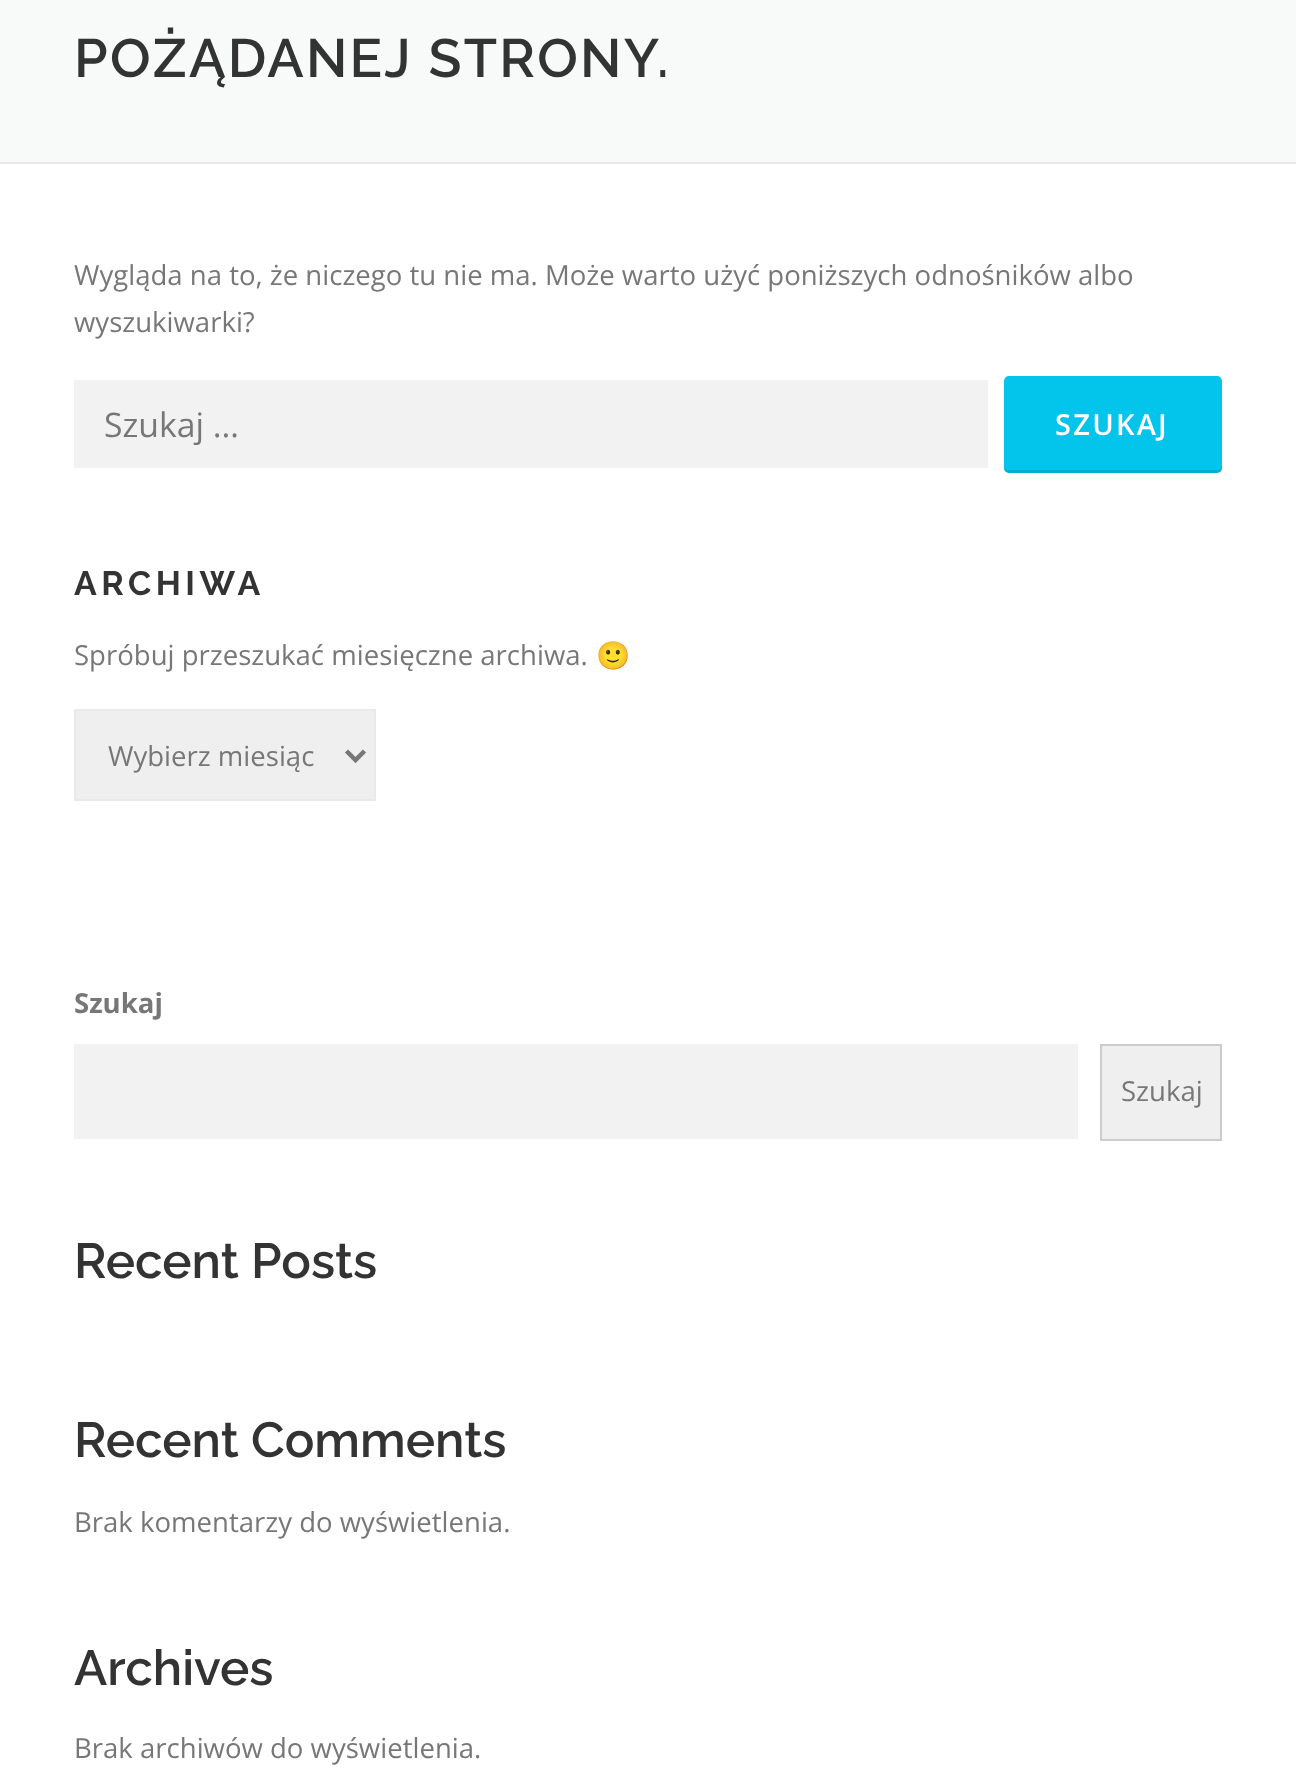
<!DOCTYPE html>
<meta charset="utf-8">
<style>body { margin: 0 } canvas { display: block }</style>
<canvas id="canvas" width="1296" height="1791"></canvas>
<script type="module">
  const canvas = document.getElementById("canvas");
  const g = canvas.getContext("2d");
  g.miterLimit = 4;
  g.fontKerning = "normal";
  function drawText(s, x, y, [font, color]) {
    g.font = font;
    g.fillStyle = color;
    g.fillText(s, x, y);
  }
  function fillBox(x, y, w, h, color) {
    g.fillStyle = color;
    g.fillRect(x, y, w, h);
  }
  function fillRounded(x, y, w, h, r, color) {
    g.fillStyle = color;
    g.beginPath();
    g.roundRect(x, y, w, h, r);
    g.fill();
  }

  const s1 = ["600 54px Raleway", "#333333"];
  const s2 = ["27.55px Open Sans", "#777777"];
  const s3 = ["33.75px Open Sans", "#777777"];
  const s4 = ["600 29px Open Sans", "#FFFFFF"];
  const s5 = ["bold 33.75px Raleway", "#333333"];
  const s6 = ["27.55px Noto Color Emoji", "#777777"];
  const s7 = ["bold 27.55px Open Sans", "#777777"];
  const s8 = ["600 49.25px Raleway", "#333333"];

  fillBox(0, 0, 1296, 1791, "#FFFFFF");
  fillBox(0, 0, 1296, 162, "#F8F9F9");
  fillBox(0, 162, 1296, 2, "#E9E9E9");
  g.letterSpacing = "2.25px";
  drawText("POŻĄDANEJ STRONY.", 74, 77, s1);
  g.letterSpacing = "0px";
  drawText("Wygląda na to, że niczego tu nie ma. Może warto użyć poniższych odnośników albo", 74, 285, s2);
  drawText("wyszukiwarki?", 74, 332, s2);
  fillBox(74, 380, 914, 88, "#F2F2F2");
  drawText("Szukaj …", 104, 437, s3);
  fillRounded(1004, 376, 218, 97, 5, "#03C4EB");
  g.fillStyle = "rgba(0, 0, 0, 0.1)";
  g.beginPath();
  g.moveTo(1004, 466);
  g.lineTo(1004, 468);
  g.bezierCurveTo(1004, 471, 1006, 473, 1009, 473);
  g.lineTo(1217, 473);
  g.bezierCurveTo(1220, 473, 1222, 471, 1222, 468);
  g.lineTo(1222, 466);
  g.bezierCurveTo(1222, 468, 1220, 470, 1217, 470);
  g.lineTo(1008, 470);
  g.bezierCurveTo(1006, 470, 1004, 468, 1004, 466);
  g.closePath();
  g.fill();
  g.letterSpacing = "2.25px";
  drawText("SZUKAJ", 1055, 435, s4);
  g.letterSpacing = "4.5px";
  drawText("ARCHIWA", 74, 595, s5);
  g.letterSpacing = "0px";
  drawText("Spróbuj przeszukać miesięczne archiwa.", 74, 665, s2);
  drawText("🙂", 596, 665, s6);
  g.fillStyle = "#EFEFEF";
  g.beginPath();
  g.rect(75, 710, 300, 90);
  g.fill();
  g.strokeStyle = "#E9E9E9";
  g.lineWidth = 2;
  g.stroke();
  g.beginPath();
  g.moveTo(346.5, 751);
  g.lineTo(355.5, 760);
  g.lineTo(364.5, 751);
  g.strokeStyle = "#777777";
  g.lineWidth = 4.5;
  g.stroke();
  drawText("Wybierz miesiąc", 108, 766, s2);
  drawText("Szukaj", 74, 1013, s7);
  fillBox(74, 1044, 1004, 95, "#F2F2F2");
  g.fillStyle = "#EFEFEF";
  g.beginPath();
  g.rect(1101, 1045, 120, 95);
  g.fill();
  g.strokeStyle = "#CCCCCC";
  g.lineWidth = 2;
  g.stroke();
  drawText("Szukaj", 1121, 1101, s2);
  drawText("Recent Posts", 74, 1278, s8);
  drawText("Recent Comments", 74, 1457, s8);
  drawText("Brak komentarzy do wyświetlenia.", 74, 1532, s2);
  drawText("Archives", 74, 1685, s8);
  drawText("Brak archiwów do wyświetlenia.", 74, 1758, s2);
</script>
